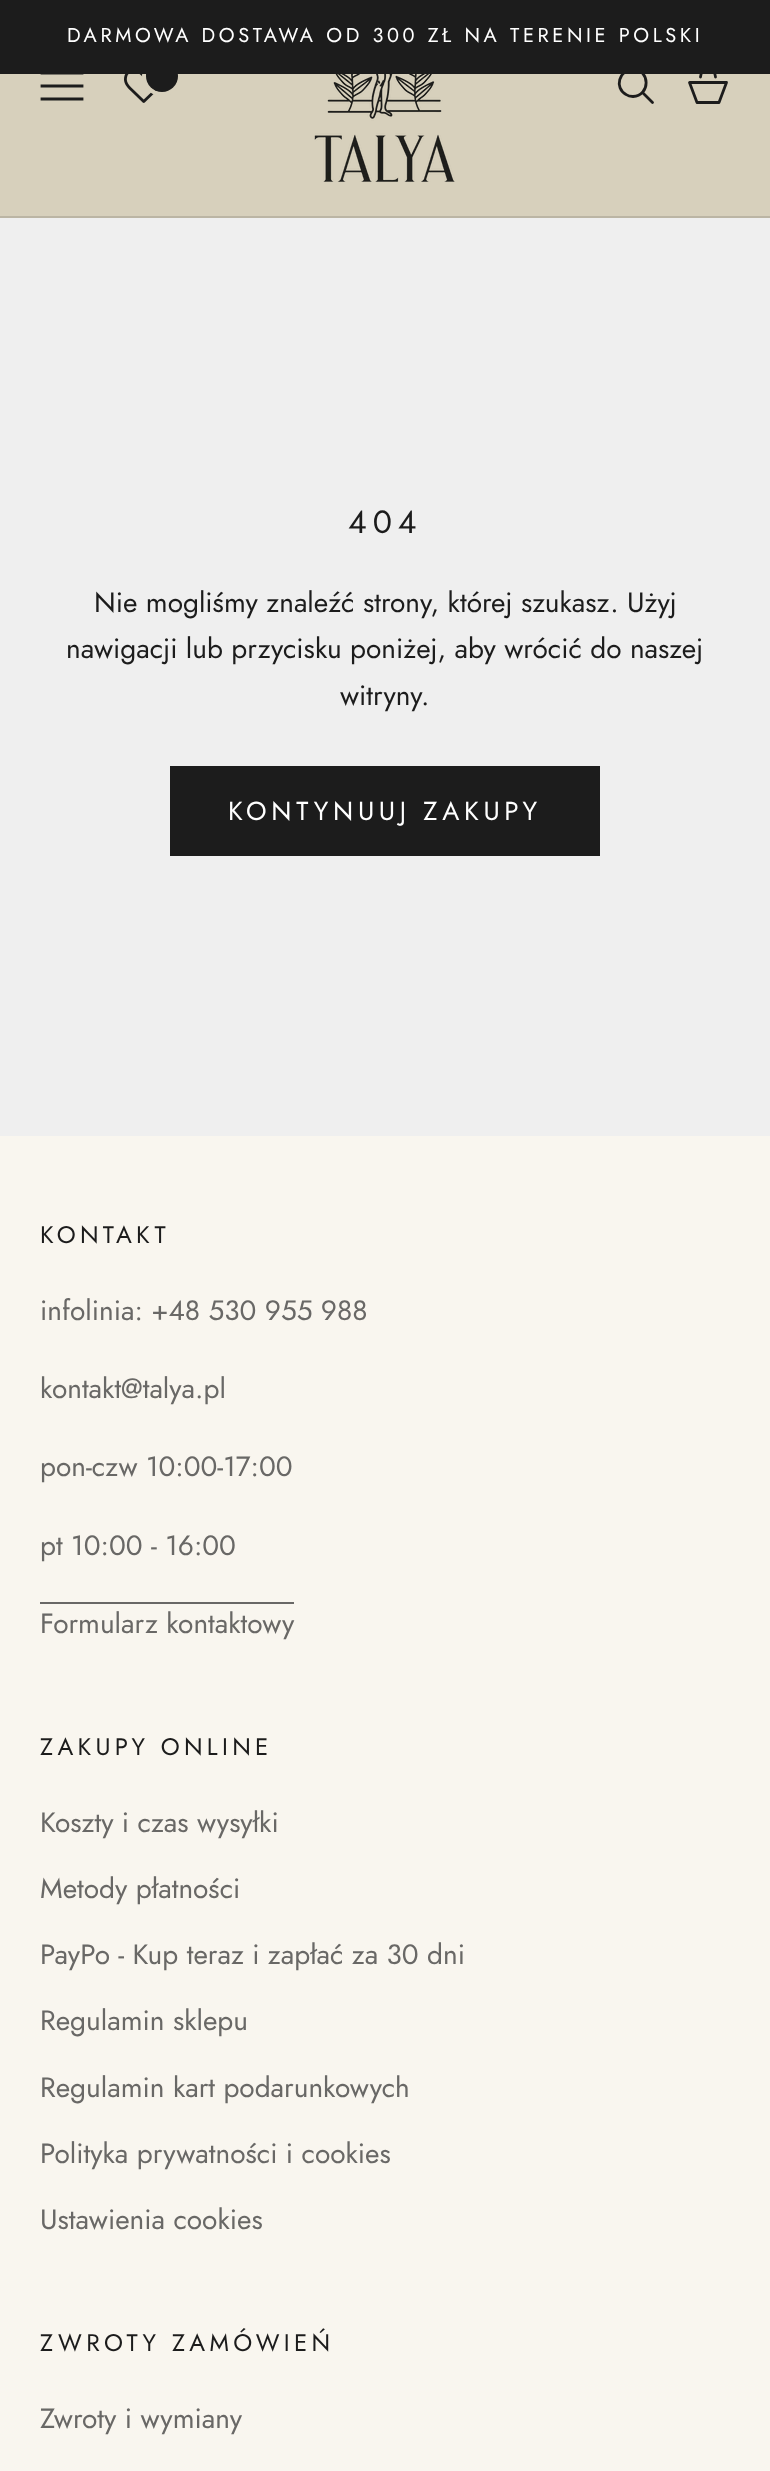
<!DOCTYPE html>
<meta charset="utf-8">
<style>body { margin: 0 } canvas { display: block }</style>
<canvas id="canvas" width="770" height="2471"></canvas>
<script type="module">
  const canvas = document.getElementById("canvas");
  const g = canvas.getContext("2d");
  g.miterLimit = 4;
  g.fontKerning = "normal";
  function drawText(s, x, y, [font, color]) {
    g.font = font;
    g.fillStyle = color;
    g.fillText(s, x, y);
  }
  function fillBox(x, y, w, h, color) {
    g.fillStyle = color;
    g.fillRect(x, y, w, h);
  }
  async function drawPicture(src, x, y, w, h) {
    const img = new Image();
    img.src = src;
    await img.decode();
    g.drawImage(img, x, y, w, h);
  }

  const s1 = ["20px Jost", "#FFFFFF"];
  const s2 = ["32px Jost", "#1C1C1C"];
  const s3 = ["28px Jost", "#1C1C1C"];
  const s4 = ["26px Jost", "#FFFFFF"];
  const s5 = ["24px Jost", "#1C1C1C"];
  const s6 = ["28px Jost", "#696866"];

  fillBox(0, 0, 770, 2471, "#F9F6EF");
  fillBox(0, 74, 770, 142, "#D7D0BC");
  g.beginPath();
  g.moveTo(42, 99);
  g.lineTo(82, 99);
  g.moveTo(42, 86);
  g.lineTo(82, 86);
  g.moveTo(42, 73);
  g.lineTo(82, 73);
  g.strokeStyle = "#1C1C1C";
  g.lineWidth = 2.8;
  g.lineCap = "square";
  g.stroke();
  await drawPicture("pic1.png", 124, 74, 33, 29);
  g.beginPath();
  g.arc(162, 76, 18, 0, Math.PI * 2);
  g.strokeStyle = "#D7D0BC";
  g.lineWidth = 4;
  g.stroke();
  g.fillStyle = "#1C1C1C";
  g.beginPath();
  g.arc(162, 76, 16, 0, Math.PI * 2);
  g.fill();
  g.beginPath();
  g.moveTo(633, 69.5);
  g.bezierCurveTo(619, 69.5, 614, 88, 626, 94.5);
  g.bezierCurveTo(628, 96, 630.5, 96.5, 633, 96.5);
  g.bezierCurveTo(650.5, 95.5, 650.5, 69.5, 633, 69.5);
  g.closePath();
  g.strokeStyle = "#1C1C1C";
  g.lineWidth = 2.8;
  g.lineCap = "butt";
  g.stroke();
  g.beginPath();
  g.moveTo(689.5, 82.5);
  g.lineTo(726.5, 82.5);
  g.lineTo(719, 102.5);
  g.lineTo(697, 102.5);
  g.closePath();
  g.moveTo(715.5, 77);
  g.bezierCurveTo(715.5, 67, 700.5, 67, 700.5, 77);
  g.lineCap = "round";
  g.lineJoin = "round";
  g.stroke();
  fillBox(0, 0, 770, 74, "#1C1C1C");
  g.letterSpacing = "3.6px";
  drawText("DARMOWA DOSTAWA OD 300 ZŁ NA TERENIE POLSKI", 67, 42, s1);
  fillBox(0, 216, 770, 2, "#BBB5A4");
  await drawPicture("pic2.png", 314, 74, 141, 108);
  g.beginPath();
  g.moveTo(643, 93);
  g.lineTo(652.5, 102.5);
  g.lineJoin = "miter";
  g.stroke();
  fillBox(0, 218, 770, 918, "#EFEFEF");
  g.letterSpacing = "6px";
  drawText("404", 348, 533, s2);
  g.letterSpacing = "0px";
  drawText("Nie mogliśmy znaleźć strony, której szukasz. Użyj", 94, 612, s3);
  drawText("nawigacji lub przycisku poniżej, aby wrócić do naszej", 66, 658, s3);
  drawText("witryny.", 340, 705, s3);
  g.beginPath();
  g.rect(171, 767, 428, 88);
  g.fill();
  g.lineWidth = 2;
  g.stroke();
  g.letterSpacing = "4.7px";
  drawText("KONTYNUUJ ZAKUPY", 228, 820, s4);
  g.letterSpacing = "4.3px";
  drawText("KONTAKT", 40, 1243, s5);
  g.letterSpacing = "0px";
  drawText("infolinia: +48 530 955 988", 40, 1320, s6);
  drawText("kontakt@talya.pl", 40, 1398, s6);
  drawText("pon-czw 10:00-17:00", 40, 1476, s6);
  drawText("pt 10:00 - 16:00", 40, 1555, s6);
  drawText("Formularz kontaktowy", 40, 1633, s6);
  fillBox(40, 1602, 254, 2, "#696866");
  g.letterSpacing = "4.3px";
  drawText("ZAKUPY ONLINE", 40, 1755, s5);
  g.letterSpacing = "0px";
  drawText("Koszty i czas wysyłki", 40, 1832, s6);
  drawText("Metody płatności", 40, 1898, s6);
  drawText("PayPo - Kup teraz i zapłać za 30 dni", 40, 1964, s6);
  drawText("Regulamin sklepu", 40, 2030, s6);
  drawText("Regulamin kart podarunkowych", 40, 2097, s6);
  drawText("Polityka prywatności i cookies", 40, 2163, s6);
  drawText("Ustawienia cookies", 40, 2229, s6);
  g.letterSpacing = "4.3px";
  drawText("ZWROTY ZAMÓWIEŃ", 40, 2351, s5);
  g.letterSpacing = "0px";
  drawText("Zwroty i wymiany", 40, 2428, s6);
</script>
